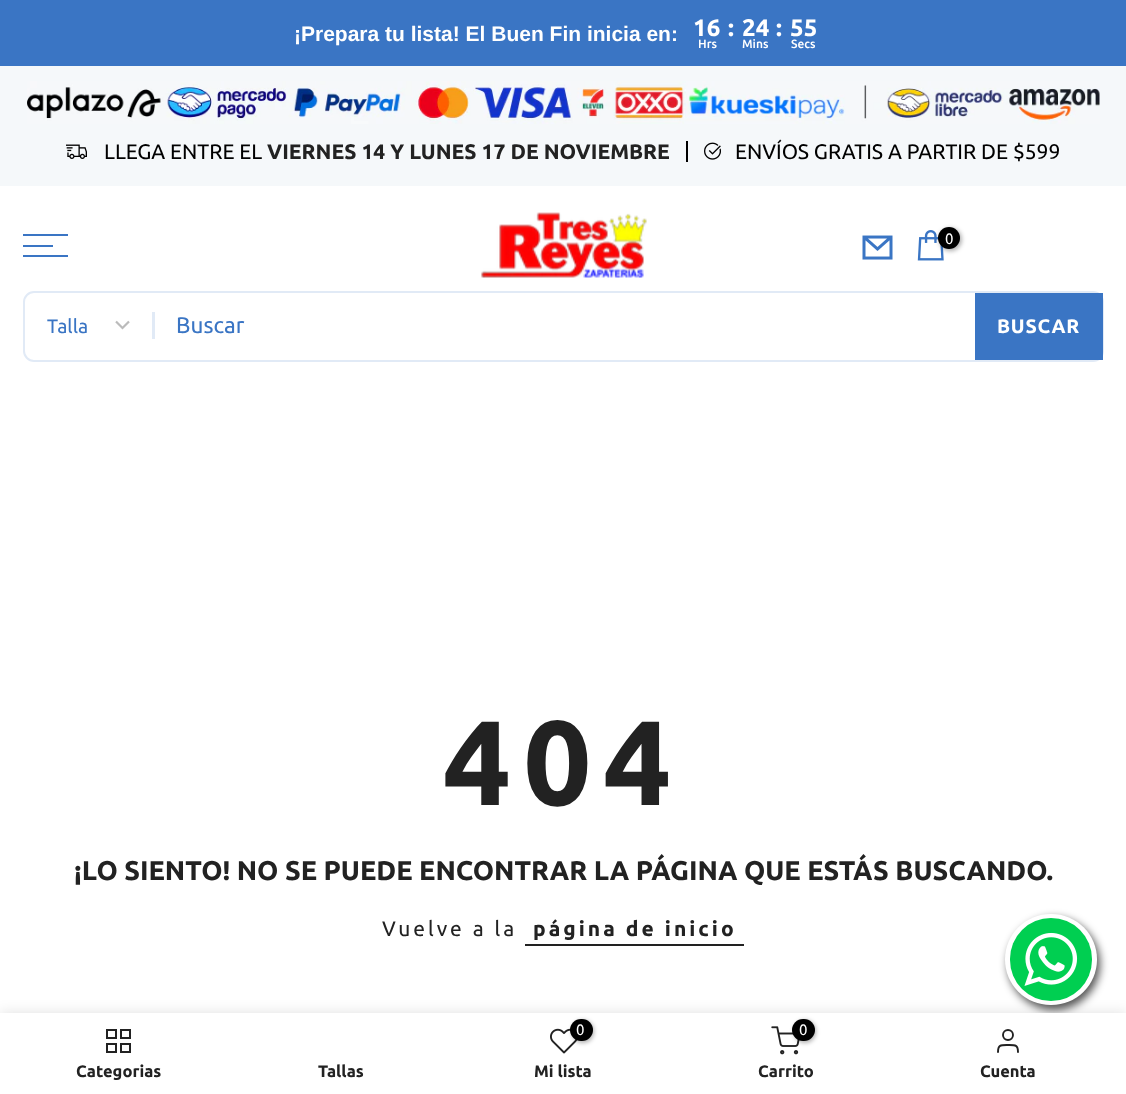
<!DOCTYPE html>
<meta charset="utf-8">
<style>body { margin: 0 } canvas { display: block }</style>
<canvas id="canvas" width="1126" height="1094"></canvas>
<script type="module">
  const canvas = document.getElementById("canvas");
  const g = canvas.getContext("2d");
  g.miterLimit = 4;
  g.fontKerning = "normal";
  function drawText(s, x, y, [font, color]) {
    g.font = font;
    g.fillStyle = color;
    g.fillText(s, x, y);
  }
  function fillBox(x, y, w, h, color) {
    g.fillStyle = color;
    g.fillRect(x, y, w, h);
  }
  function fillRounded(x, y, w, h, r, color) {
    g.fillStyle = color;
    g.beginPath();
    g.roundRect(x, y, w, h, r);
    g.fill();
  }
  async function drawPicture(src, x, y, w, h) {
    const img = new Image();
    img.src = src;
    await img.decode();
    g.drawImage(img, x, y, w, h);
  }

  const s1 = ["bold 21px Liberation Sans", "#FFFFFF"];
  const s2 = ["bold 24px Ubuntu", "#FFFFFF"];
  const s3 = ["500 12px Ubuntu", "#FFFFFF"];
  const s4 = ["21px Ubuntu", "#000000"];
  const s5 = ["bold 21px Ubuntu", "#222222"];
  const s6 = ["15px Ubuntu", "#FFFFFF"];
  const s7 = ["19.5px Ubuntu", "#3A75C4"];
  const s8 = ["22.5px Ubuntu", "#3A75C4"];
  const s9 = ["bold 19.5px Ubuntu", "#FFFFFF"];
  const s10 = ["bold 120px Ubuntu", "#222222"];
  const s11 = ["bold 27px Ubuntu", "#222222"];
  const s12 = ["21px Ubuntu", "#222222"];
  const s13 = ["bold 16.5px Ubuntu", "#222222"];

  fillBox(0, 0, 1126, 1094, "#FFFFFF");
  fillBox(0, 0, 1126, 66, "#3A75C4");
  drawText("¡Prepara tu lista! El Buen Fin inicia en:", 294, 41, s1);
  drawText("16", 693, 36, s2);
  drawText("Hrs", 698, 48, s3);
  drawText(":", 728, 36, s2);
  drawText("24", 742, 36, s2);
  drawText("Mins", 742, 48, s3);
  drawText(":", 776, 36, s2);
  drawText("55", 790, 36, s2);
  drawText("Secs", 791, 48, s3);
  fillBox(0, 66, 1126, 120, "#F5F8FA");
  await drawPicture("pic1.png", 27, 81, 1073, 43);
  fillBox(686, 141, 2, 21, "#000000");
  await drawPicture("pic2.png", 66, 144, 21, 15);
  drawText("LLEGA ENTRE EL", 104, 159, s4);
  drawText("VIERNES 14 Y LUNES 17 DE NOVIEMBRE", 267, 159, s5);
  await drawPicture("pic3.png", 704, 142, 17, 18);
  drawText("ENVÍOS GRATIS A PARTIR DE $599", 735, 159, s4);
  fillBox(23, 234, 45, 2, "#3A75C4");
  fillBox(23, 245, 30, 2, "#3A75C4");
  fillBox(23, 255, 45, 2, "#3A75C4");
  await drawPicture("pic4.png", 481, 212, 166, 66);
  await drawPicture("pic5.png", 862, 235, 31, 25);
  await drawPicture("pic6.png", 917, 230, 27, 31);
  g.fillStyle = "rgba(0, 0, 0, 0.3)";
  g.filter = "blur(2px)";
  g.beginPath();
  g.roundRect(939, 228, 23, 23, 11.5);
  g.fill();
  g.filter = "none";
  g.fillStyle = "#000000";
  g.beginPath();
  g.arc(949, 238, 11, 0, Math.PI * 2);
  g.fill();
  drawText("0", 945, 244, s6);
  g.beginPath();
  g.roundRect(24, 292, 1079, 69, 10);
  g.strokeStyle = "#E1EAF6";
  g.lineWidth = 2;
  g.stroke();
  g.beginPath();
  g.moveTo(116, 321.5);
  g.lineTo(122.5, 328);
  g.lineTo(129, 321.5);
  g.strokeStyle = "#BBBBBB";
  g.lineWidth = 2.2;
  g.stroke();
  drawText("Talla", 47, 333, s7);
  fillBox(152, 312, 3, 27, "#E1EAF6");
  drawText("Buscar", 176, 333, s8);
  fillBox(975, 293, 128, 67, "#3A75C4");
  g.letterSpacing = "0.75px";
  drawText("BUSCAR", 997, 333, s9);
  g.letterSpacing = "12px";
  drawText("404", 443, 805, s10);
  g.letterSpacing = "0px";
  drawText("¡LO SIENTO! NO SE PUEDE ENCONTRAR LA PÁGINA QUE ESTÁS BUSCANDO.", 74, 880, s11);
  g.letterSpacing = "3px";
  drawText("Vuelve a la", 382, 936, s12);
  drawText("página de inicio", 533, 936, s5);
  fillBox(525, 944, 219, 2, "#222222");
  g.fillStyle = "rgba(0, 0, 0, 0.67)";
  g.filter = "blur(4px)";
  g.beginPath();
  g.roundRect(1008, 918, 92, 92, 46);
  g.fill();
  g.filter = "none";
  fillRounded(1005, 914, 92, 91, 45.5, "#FFFFFF");
  fillRounded(1010, 918, 82, 83, 41, "#00CF51");
  await drawPicture("pic7.png", 1024, 932, 54, 54);
  g.fillStyle = "rgba(0, 0, 0, 0.12)";
  g.filter = "blur(7px)";
  g.beginPath();
  g.rect(0, 1013, 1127, 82);
  g.fill();
  g.filter = "none";
  fillBox(0, 1013, 1126, 81, "#FFFFFF");
  g.strokeStyle = "#222222";
  g.lineWidth = 2;
  g.strokeRect(107, 1030, 9, 8);
  g.strokeRect(121, 1030, 9, 8);
  g.strokeRect(107, 1044, 9, 8);
  g.strokeRect(121, 1044, 9, 8);
  g.letterSpacing = "0px";
  drawText("Categorias", 76, 1077, s13);
  drawText("Tallas", 318, 1077, s13);
  await drawPicture("pic8.png", 550, 1028, 28, 26);
  g.fillStyle = "rgba(0, 0, 0, 0.3)";
  g.filter = "blur(2px)";
  g.beginPath();
  g.roundRect(572, 1020, 22, 23, 11);
  g.fill();
  g.filter = "none";
  fillRounded(570, 1019, 23, 22, 11, "#000000");
  drawText("0", 576, 1035, s6);
  drawText("Mi lista", 534, 1077, s13);
  await drawPicture("pic9.png", 771, 1026, 29, 29);
  g.fillStyle = "rgba(0, 0, 0, 0.3)";
  g.filter = "blur(2px)";
  g.beginPath();
  g.roundRect(794, 1020, 22, 23, 11);
  g.fill();
  g.filter = "none";
  fillRounded(792, 1019, 23, 22, 11, "#000000");
  drawText("0", 799, 1035, s6);
  drawText("Carrito", 758, 1077, s13);
  g.beginPath();
  g.arc(1008, 1035, 5, 0, Math.PI * 2);
  g.lineWidth = 1.9;
  g.stroke();
  g.beginPath();
  g.moveTo(1018, 1052);
  g.bezierCurveTo(1018, 1044.5, 1015, 1045, 1008, 1045);
  g.bezierCurveTo(1001, 1045, 998, 1044.5, 998, 1052);
  g.lineCap = "round";
  g.lineJoin = "round";
  g.stroke();
  drawText("Cuenta", 980, 1077, s13);
</script>
